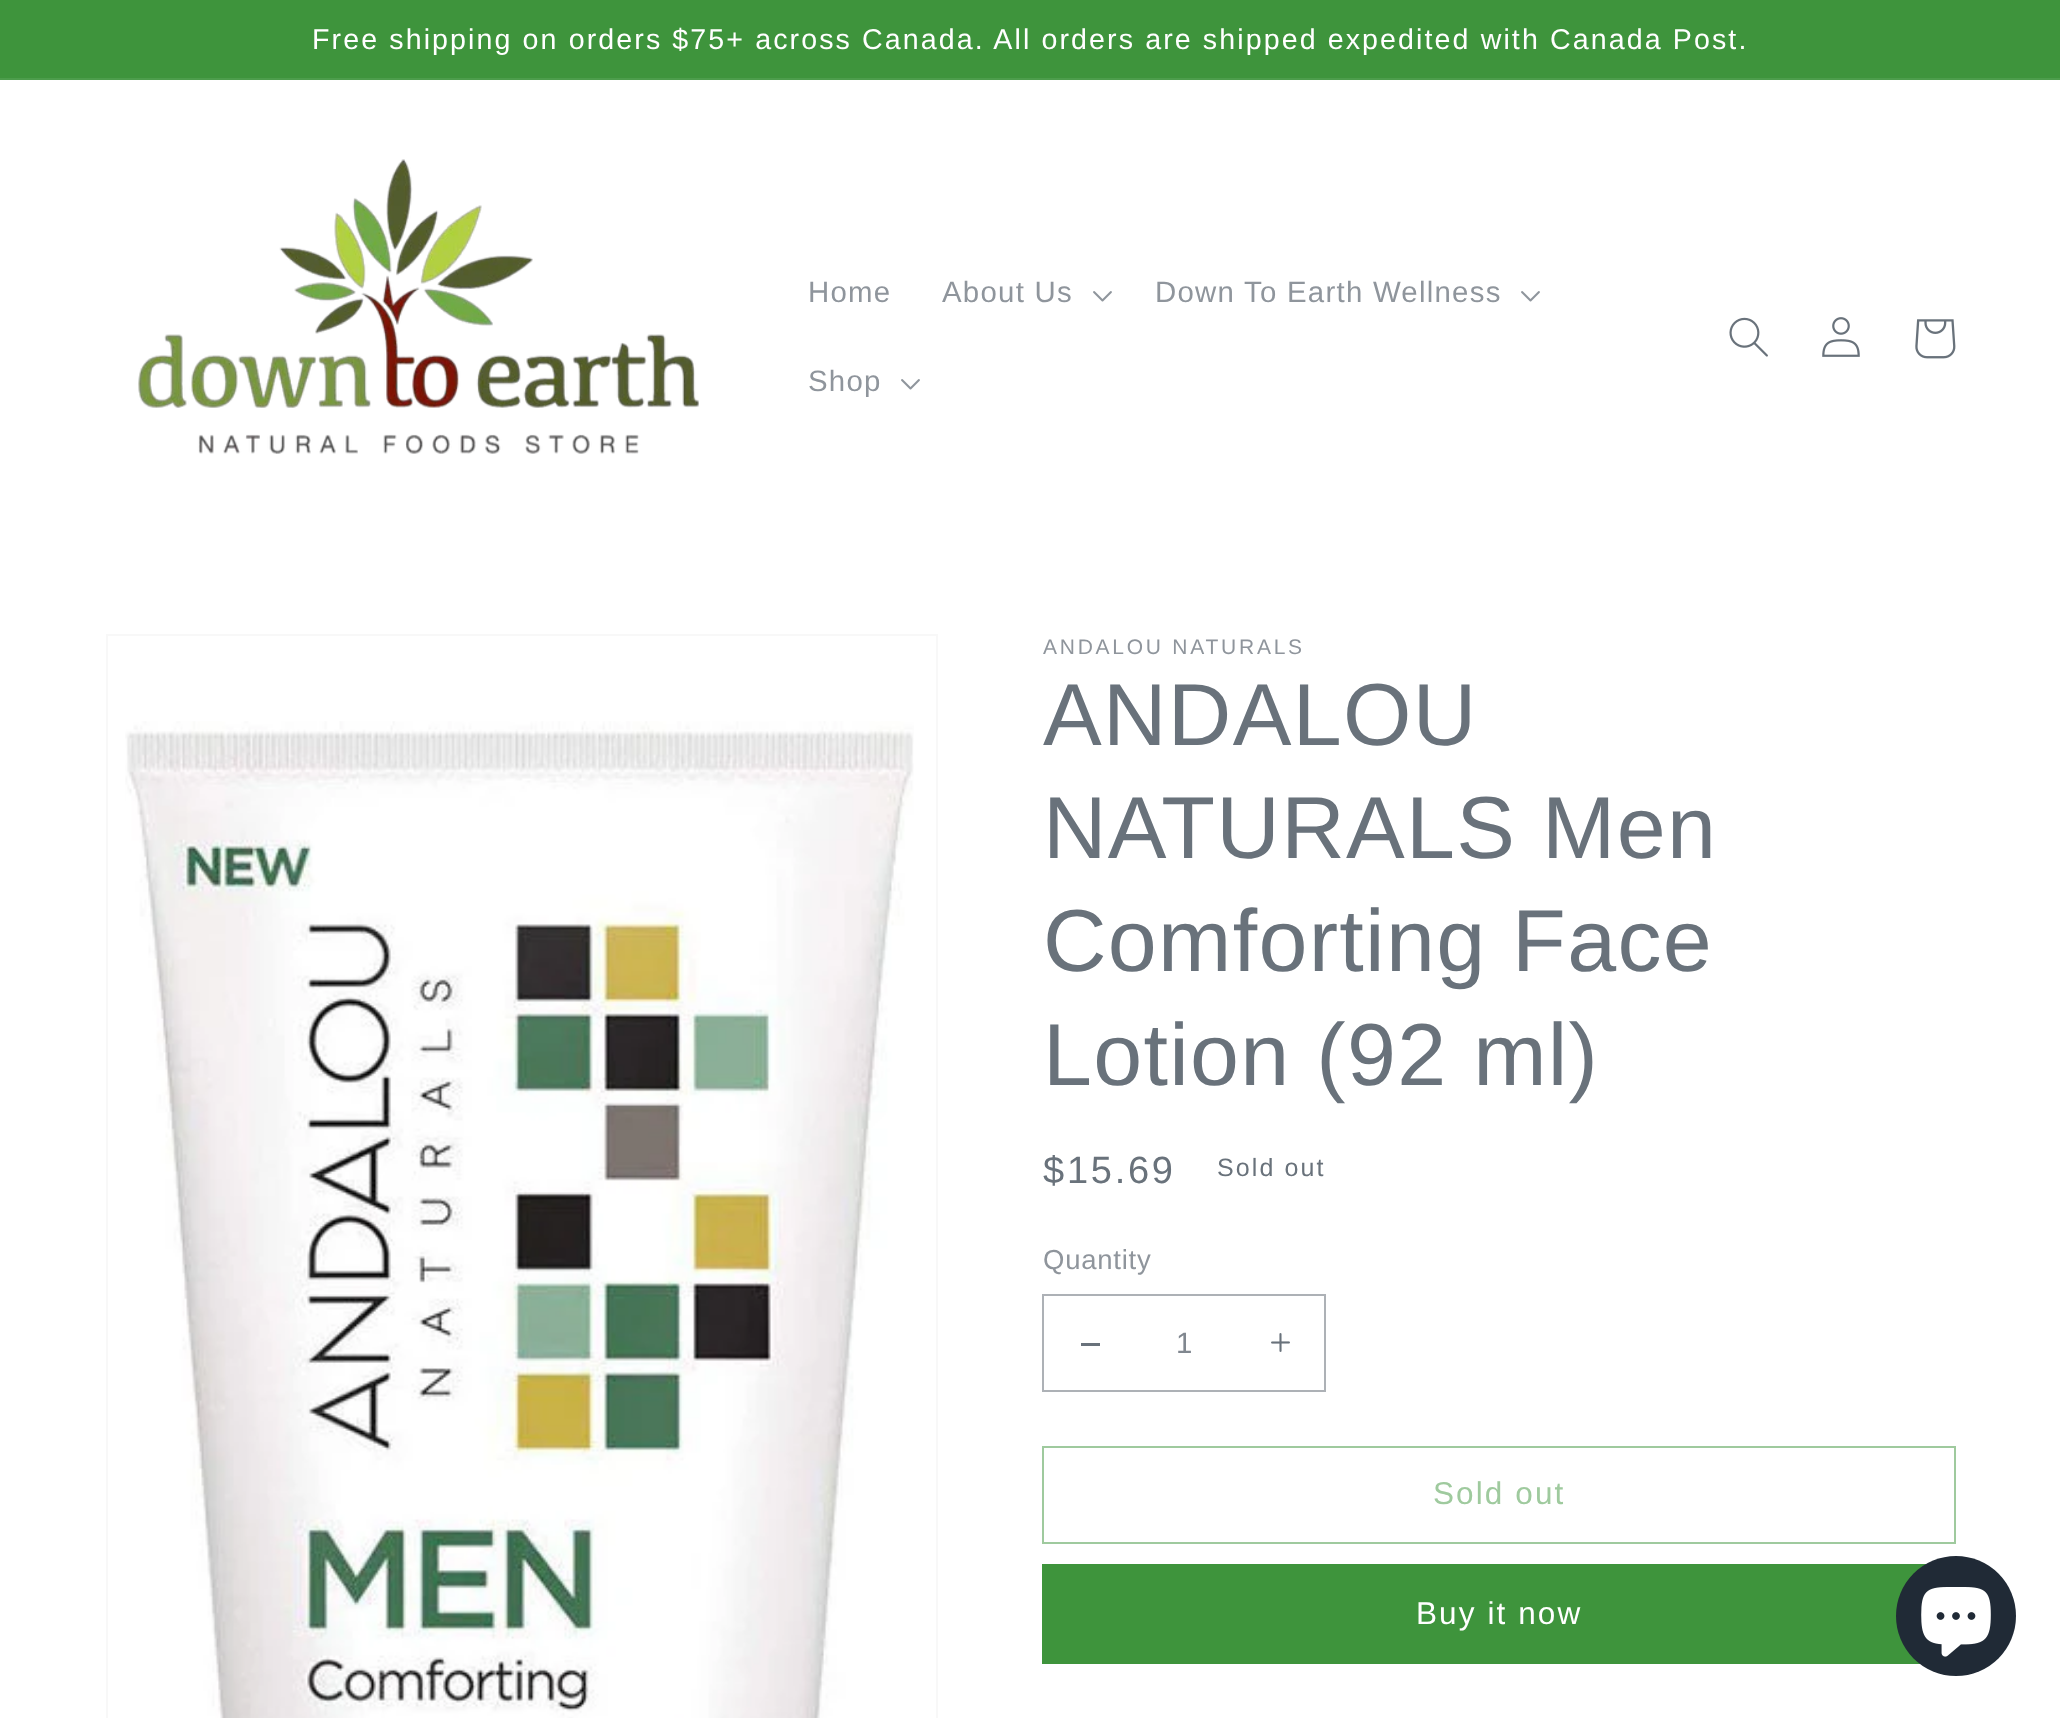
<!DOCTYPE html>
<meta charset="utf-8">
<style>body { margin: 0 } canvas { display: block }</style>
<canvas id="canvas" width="2060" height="1718"></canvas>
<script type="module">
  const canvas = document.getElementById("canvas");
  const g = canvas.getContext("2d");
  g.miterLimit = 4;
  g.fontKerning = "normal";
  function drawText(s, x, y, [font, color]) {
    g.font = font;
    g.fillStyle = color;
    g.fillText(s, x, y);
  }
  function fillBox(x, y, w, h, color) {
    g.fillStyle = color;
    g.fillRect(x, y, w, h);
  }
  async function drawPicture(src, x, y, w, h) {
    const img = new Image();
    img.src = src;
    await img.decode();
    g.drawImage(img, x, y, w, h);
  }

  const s1 = ["28.6px Liberation Sans", "#FFFFFF"];
  const s2 = ["29.4px Liberation Sans", "#8F959C"];
  const s3 = ["21px Liberation Sans", "#8F959C"];
  const s4 = ["88px Liberation Sans", "#69727B"];
  const s5 = ["38px Liberation Sans", "#69727B"];
  const s6 = ["25px Liberation Sans", "#69727B"];
  const s7 = ["27.5px Liberation Sans", "#8F959C"];
  const s8 = ["29.4px Liberation Sans", "#80878F"];
  const s9 = ["31.5px Liberation Sans", "#9FCA9E"];
  const s10 = ["31.5px Liberation Sans", "#FFFFFF"];

  fillBox(0, 0, 2060, 1718, "#FFFFFF");
  fillBox(0, 0, 2060, 78, "#3E943C");
  fillBox(0, 78, 2060, 2, "#4D9D4C");
  g.letterSpacing = "2.1px";
  drawText("Free shipping on orders $75+ across Canada. All orders are shipped expedited with Canada Post.", 312, 49, s1);
  await drawPicture("pic1.png", 138, 159, 561, 295);
  g.letterSpacing = "1.25px";
  drawText("Home", 808, 302, s2);
  drawText("About Us", 942, 302, s2);
  await drawPicture("pic2.png", 1093, 291, 19, 11);
  drawText("Down To Earth Wellness", 1155, 302, s2);
  await drawPicture("pic2.png", 1521, 291, 19, 11);
  drawText("Shop", 808, 391, s2);
  await drawPicture("pic2.png", 901, 379, 19, 11);
  await drawPicture("pic3.png", 1729, 317, 39, 40);
  await drawPicture("pic4.png", 1822, 317, 38, 40);
  await drawPicture("pic5.png", 1915, 319, 41, 40);
  g.strokeStyle = "#F8F8F8";
  g.lineWidth = 2;
  g.strokeRect(107, 635, 830, 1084);
  await drawPicture("pic6.png", 125, 721, 789, 997);
  g.letterSpacing = "2.75px";
  drawText("ANDALOU NATURALS", 1043, 654, s3);
  g.letterSpacing = "1.3px";
  drawText("ANDALOU", 1043, 745, s4);
  drawText("NATURALS Men", 1043, 858, s4);
  drawText("Comforting Face", 1043, 971, s4);
  drawText("Lotion (92 ml)", 1043, 1085, s4);
  g.letterSpacing = "2.75px";
  drawText("$15.69", 1043, 1183, s5);
  g.letterSpacing = "2.1px";
  drawText("Sold out", 1217, 1176, s6);
  g.letterSpacing = "0.75px";
  drawText("Quantity", 1043, 1269, s7);
  fillBox(1081, 1343, 19, 3, "#69727B");
  await drawPicture("pic7.png", 1271, 1333, 19, 19);
  g.strokeStyle = "#ADB1B6";
  g.strokeRect(1043, 1295, 282, 96);
  g.letterSpacing = "0px";
  drawText("1", 1176, 1353, s8);
  g.strokeStyle = "#9FCA9E";
  g.strokeRect(1043, 1447, 912, 96);
  g.letterSpacing = "2.1px";
  drawText("Sold out", 1433, 1504, s9);
  fillBox(1042, 1564, 885, 100, "#3E943C");
  drawText("Buy it now", 1416, 1624, s10);
  g.fillStyle = "#202A36";
  g.beginPath();
  g.arc(1956, 1616, 60, 0, Math.PI * 2);
  g.fill();
  await drawPicture("pic8.png", 1921, 1587, 70, 70);
</script>
